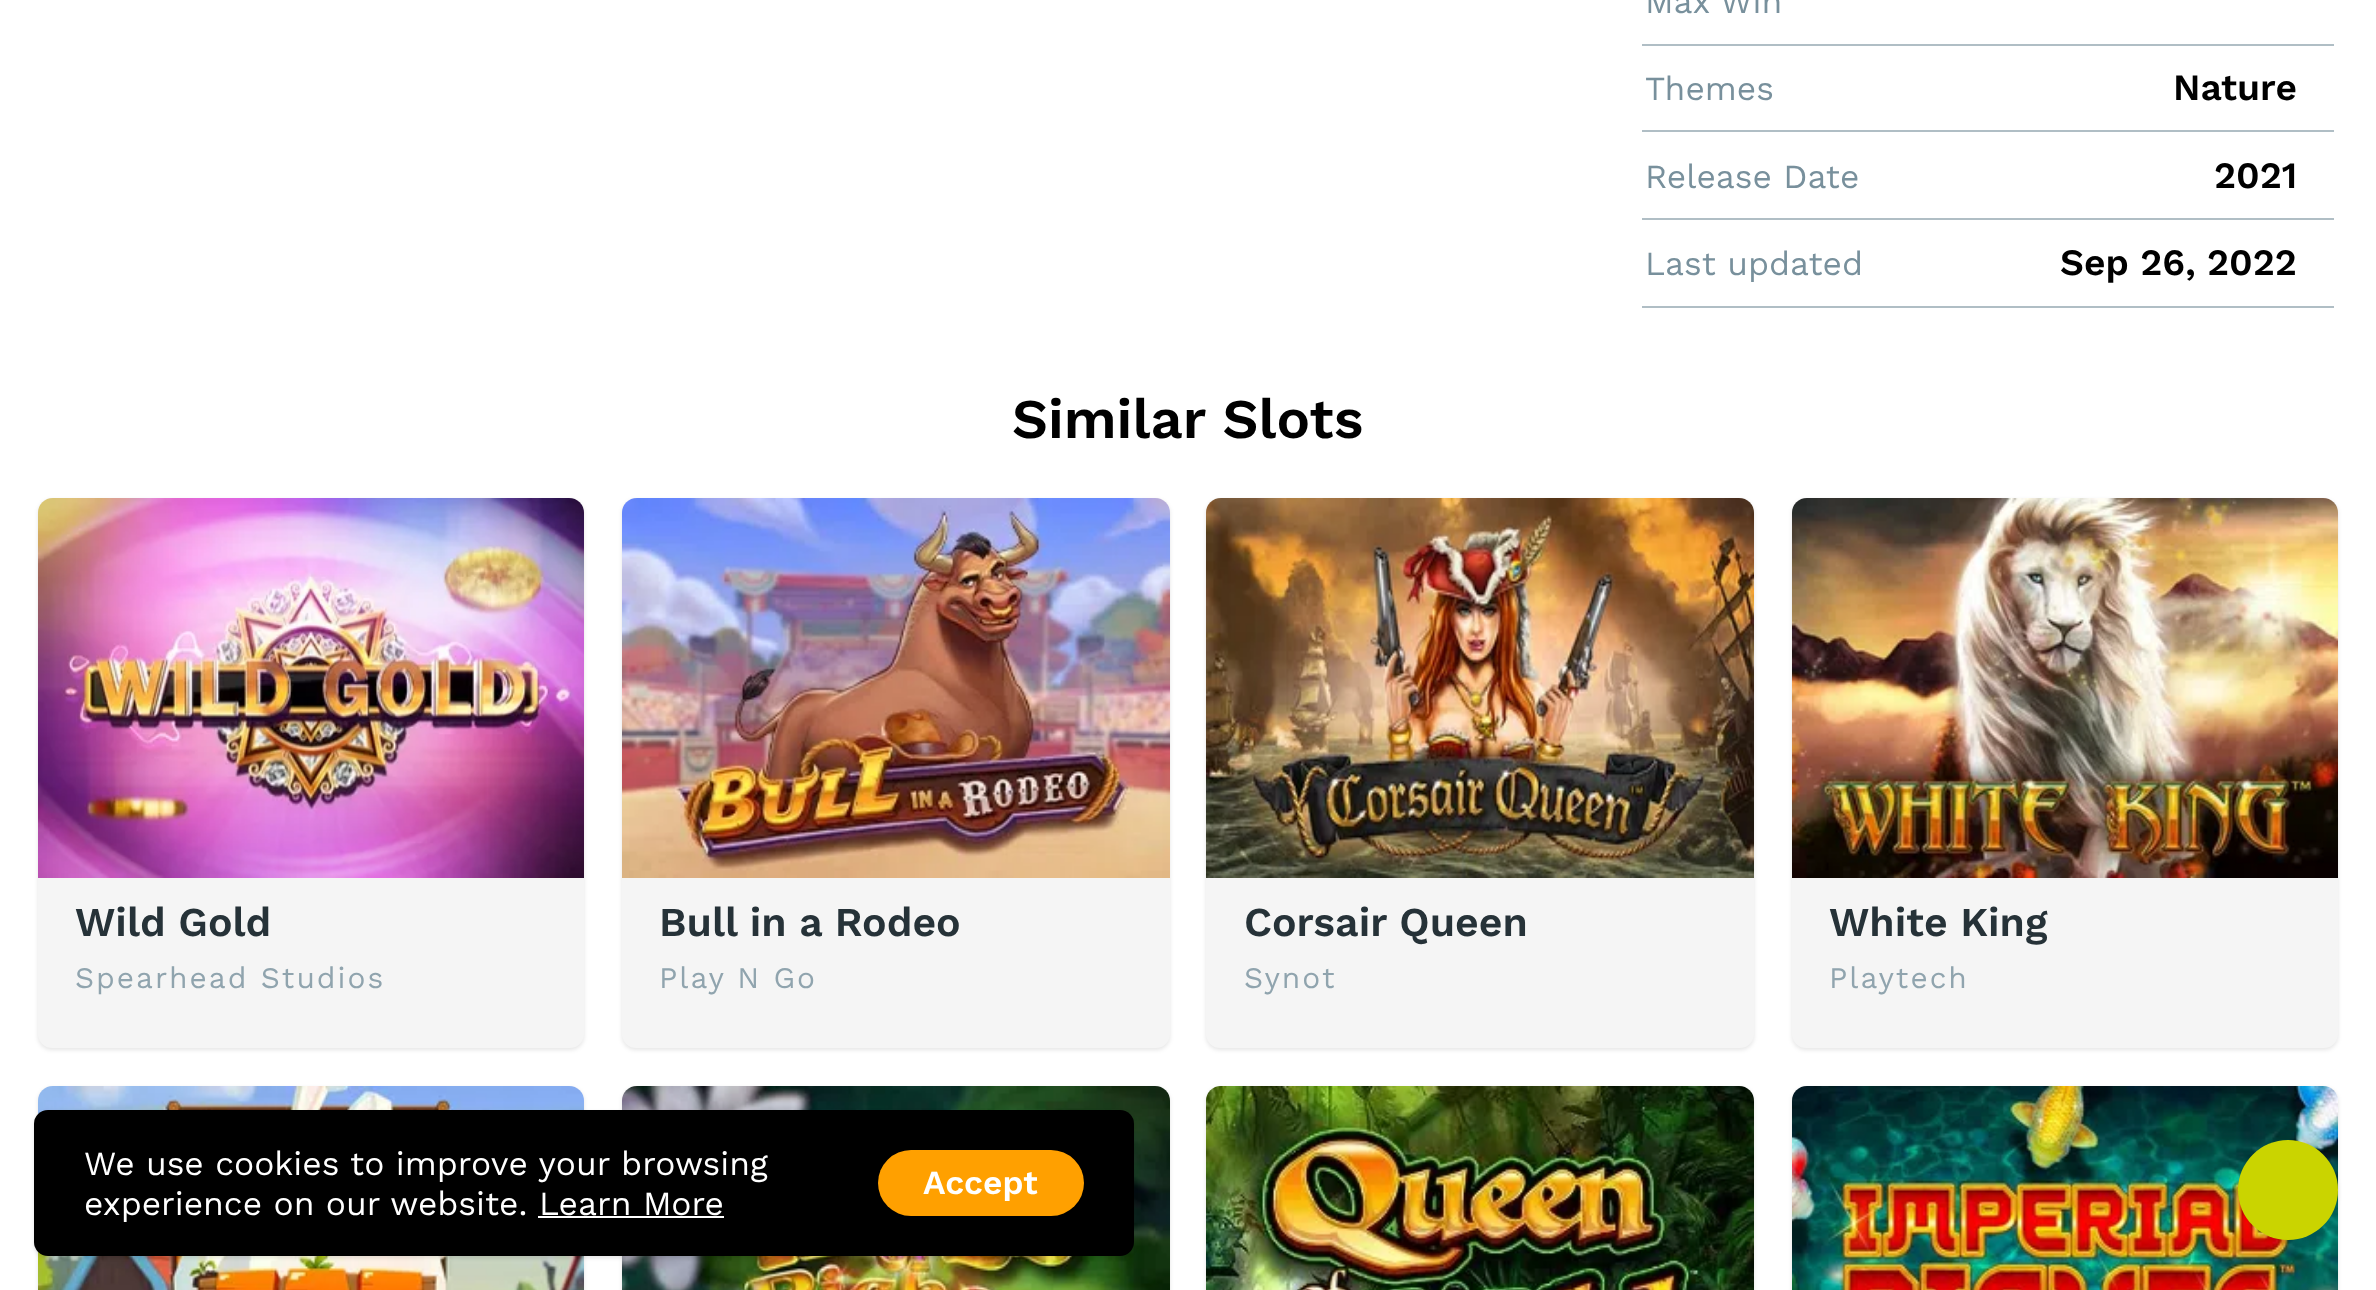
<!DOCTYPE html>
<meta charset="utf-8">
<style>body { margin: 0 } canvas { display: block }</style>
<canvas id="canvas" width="2376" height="1290"></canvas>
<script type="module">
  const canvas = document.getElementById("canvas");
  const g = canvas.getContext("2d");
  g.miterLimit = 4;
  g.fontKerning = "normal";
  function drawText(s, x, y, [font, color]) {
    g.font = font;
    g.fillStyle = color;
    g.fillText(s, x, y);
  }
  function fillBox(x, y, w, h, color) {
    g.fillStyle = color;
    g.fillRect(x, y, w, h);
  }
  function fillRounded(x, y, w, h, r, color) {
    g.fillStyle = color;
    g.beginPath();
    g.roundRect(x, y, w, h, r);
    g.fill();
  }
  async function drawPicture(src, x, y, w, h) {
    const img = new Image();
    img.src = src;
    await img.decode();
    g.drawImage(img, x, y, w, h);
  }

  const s1 = ["33.6px Work Sans", "#78909C"];
  const s2 = ["600 37.25px Work Sans", "#000000"];
  const s3 = ["600 56px Work Sans", "#000000"];
  const s4 = ["600 41px Work Sans", "#263238"];
  const s5 = ["29.9px Work Sans", "#90A4AE"];
  const s6 = ["33.6px Work Sans", "#FFFFFF"];
  const s7 = ["600 33.6px Work Sans", "#FFFFFF"];

  fillBox(0, 0, 2376, 1290, "#FFFFFF");
  fillBox(1642, 44, 692, 2, "#B0BEC5");
  drawText("Max Win", 1645, 13, s1);
  fillBox(1642, 130, 692, 2, "#B0BEC5");
  drawText("Themes", 1645, 100, s1);
  drawText("Nature", 2173, 100, s2);
  fillBox(1642, 218, 692, 2, "#B0BEC5");
  drawText("Release Date", 1645, 188, s1);
  drawText("2021", 2214, 188, s2);
  fillBox(1642, 306, 692, 2, "#B0BEC5");
  drawText("Last updated", 1645, 275, s1);
  drawText("Sep 26, 2022", 2060, 275, s2);
  drawText("Similar Slots", 1012, 438, s3);
  g.fillStyle = "rgba(0, 0, 0, 0.1)";
  g.filter = "blur(2px)";
  g.beginPath();
  g.roundRect(38, 500, 546, 550, 14);
  g.fill();
  g.filter = "none";
  fillRounded(38, 498, 546, 550, 14, "#F5F5F5");
  await drawPicture("pic1.png", 38, 498, 546, 380);
  drawText("Wild Gold", 75, 936, s4);
  g.letterSpacing = "2px";
  drawText("Spearhead Studios", 75, 988, s5);
  g.fillStyle = "rgba(0, 0, 0, 0.1)";
  g.filter = "blur(2px)";
  g.beginPath();
  g.roundRect(622, 500, 548, 550, 14);
  g.fill();
  g.filter = "none";
  fillRounded(622, 498, 548, 550, 14, "#F5F5F5");
  await drawPicture("pic2.png", 622, 498, 548, 380);
  g.letterSpacing = "0px";
  drawText("Bull in a Rodeo", 659, 936, s4);
  g.letterSpacing = "2px";
  drawText("Play N Go", 659, 988, s5);
  g.fillStyle = "rgba(0, 0, 0, 0.1)";
  g.filter = "blur(2px)";
  g.beginPath();
  g.roundRect(1206, 500, 548, 550, 14);
  g.fill();
  g.filter = "none";
  fillRounded(1206, 498, 548, 550, 14, "#F5F5F5");
  await drawPicture("pic3.png", 1206, 498, 548, 380);
  g.letterSpacing = "0px";
  drawText("Corsair Queen", 1244, 936, s4);
  g.letterSpacing = "2px";
  drawText("Synot", 1244, 988, s5);
  g.fillStyle = "rgba(0, 0, 0, 0.1)";
  g.filter = "blur(2px)";
  g.beginPath();
  g.roundRect(1792, 500, 546, 550, 14);
  g.fill();
  g.filter = "none";
  fillRounded(1792, 498, 546, 550, 14, "#F5F5F5");
  await drawPicture("pic4.png", 1792, 498, 546, 380);
  g.letterSpacing = "0px";
  drawText("White King", 1829, 936, s4);
  g.letterSpacing = "2px";
  drawText("Playtech", 1829, 988, s5);
  g.fillStyle = "rgba(0, 0, 0, 0.1)";
  g.filter = "blur(2px)";
  g.beginPath();
  g.roundRect(38, 1088, 546, 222, 14);
  g.fill();
  g.filter = "none";
  fillRounded(38, 1086, 546, 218, 14, "#F5F5F5");
  await drawPicture("pic5.png", 38, 1086, 546, 204);
  g.fillStyle = "rgba(0, 0, 0, 0.1)";
  g.filter = "blur(2px)";
  g.beginPath();
  g.roundRect(622, 1088, 548, 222, 14);
  g.fill();
  g.filter = "none";
  fillRounded(622, 1086, 548, 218, 14, "#F5F5F5");
  await drawPicture("pic6.png", 622, 1086, 548, 204);
  g.fillStyle = "rgba(0, 0, 0, 0.1)";
  g.filter = "blur(2px)";
  g.beginPath();
  g.roundRect(1206, 1088, 548, 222, 14);
  g.fill();
  g.filter = "none";
  fillRounded(1206, 1086, 548, 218, 14, "#F5F5F5");
  await drawPicture("pic7.png", 1206, 1086, 548, 204);
  g.fillStyle = "rgba(0, 0, 0, 0.1)";
  g.filter = "blur(2px)";
  g.beginPath();
  g.roundRect(1792, 1088, 546, 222, 14);
  g.fill();
  g.filter = "none";
  fillRounded(1792, 1086, 546, 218, 14, "#F5F5F5");
  await drawPicture("pic8.png", 1792, 1086, 546, 204);
  g.fillStyle = "rgba(0, 0, 0, 0.1)";
  g.filter = "blur(2px)";
  g.beginPath();
  g.roundRect(34, 1112, 1100, 146, 14);
  g.fill();
  g.filter = "none";
  fillRounded(34, 1110, 1100, 146, 14, "#000000");
  g.letterSpacing = "0px";
  drawText("We use cookies to improve your browsing", 84, 1175, s6);
  drawText("experience on our website.", 84, 1215, s6);
  drawText("Learn More", 539, 1215, s6);
  fillBox(538, 1216, 186, 2, "#FFFFFF");
  fillRounded(878, 1150, 206, 66, 33, "#FFA000");
  drawText("Accept", 923, 1194, s7);
  g.fillStyle = "rgba(0, 0, 0, 0.1)";
  g.filter = "blur(2px)";
  g.beginPath();
  g.roundRect(2238, 1142, 100, 100, 50);
  g.fill();
  g.filter = "none";
  g.fillStyle = "#CAD400";
  g.beginPath();
  g.arc(2288, 1190, 50, 0, Math.PI * 2);
  g.fill();
</script>
